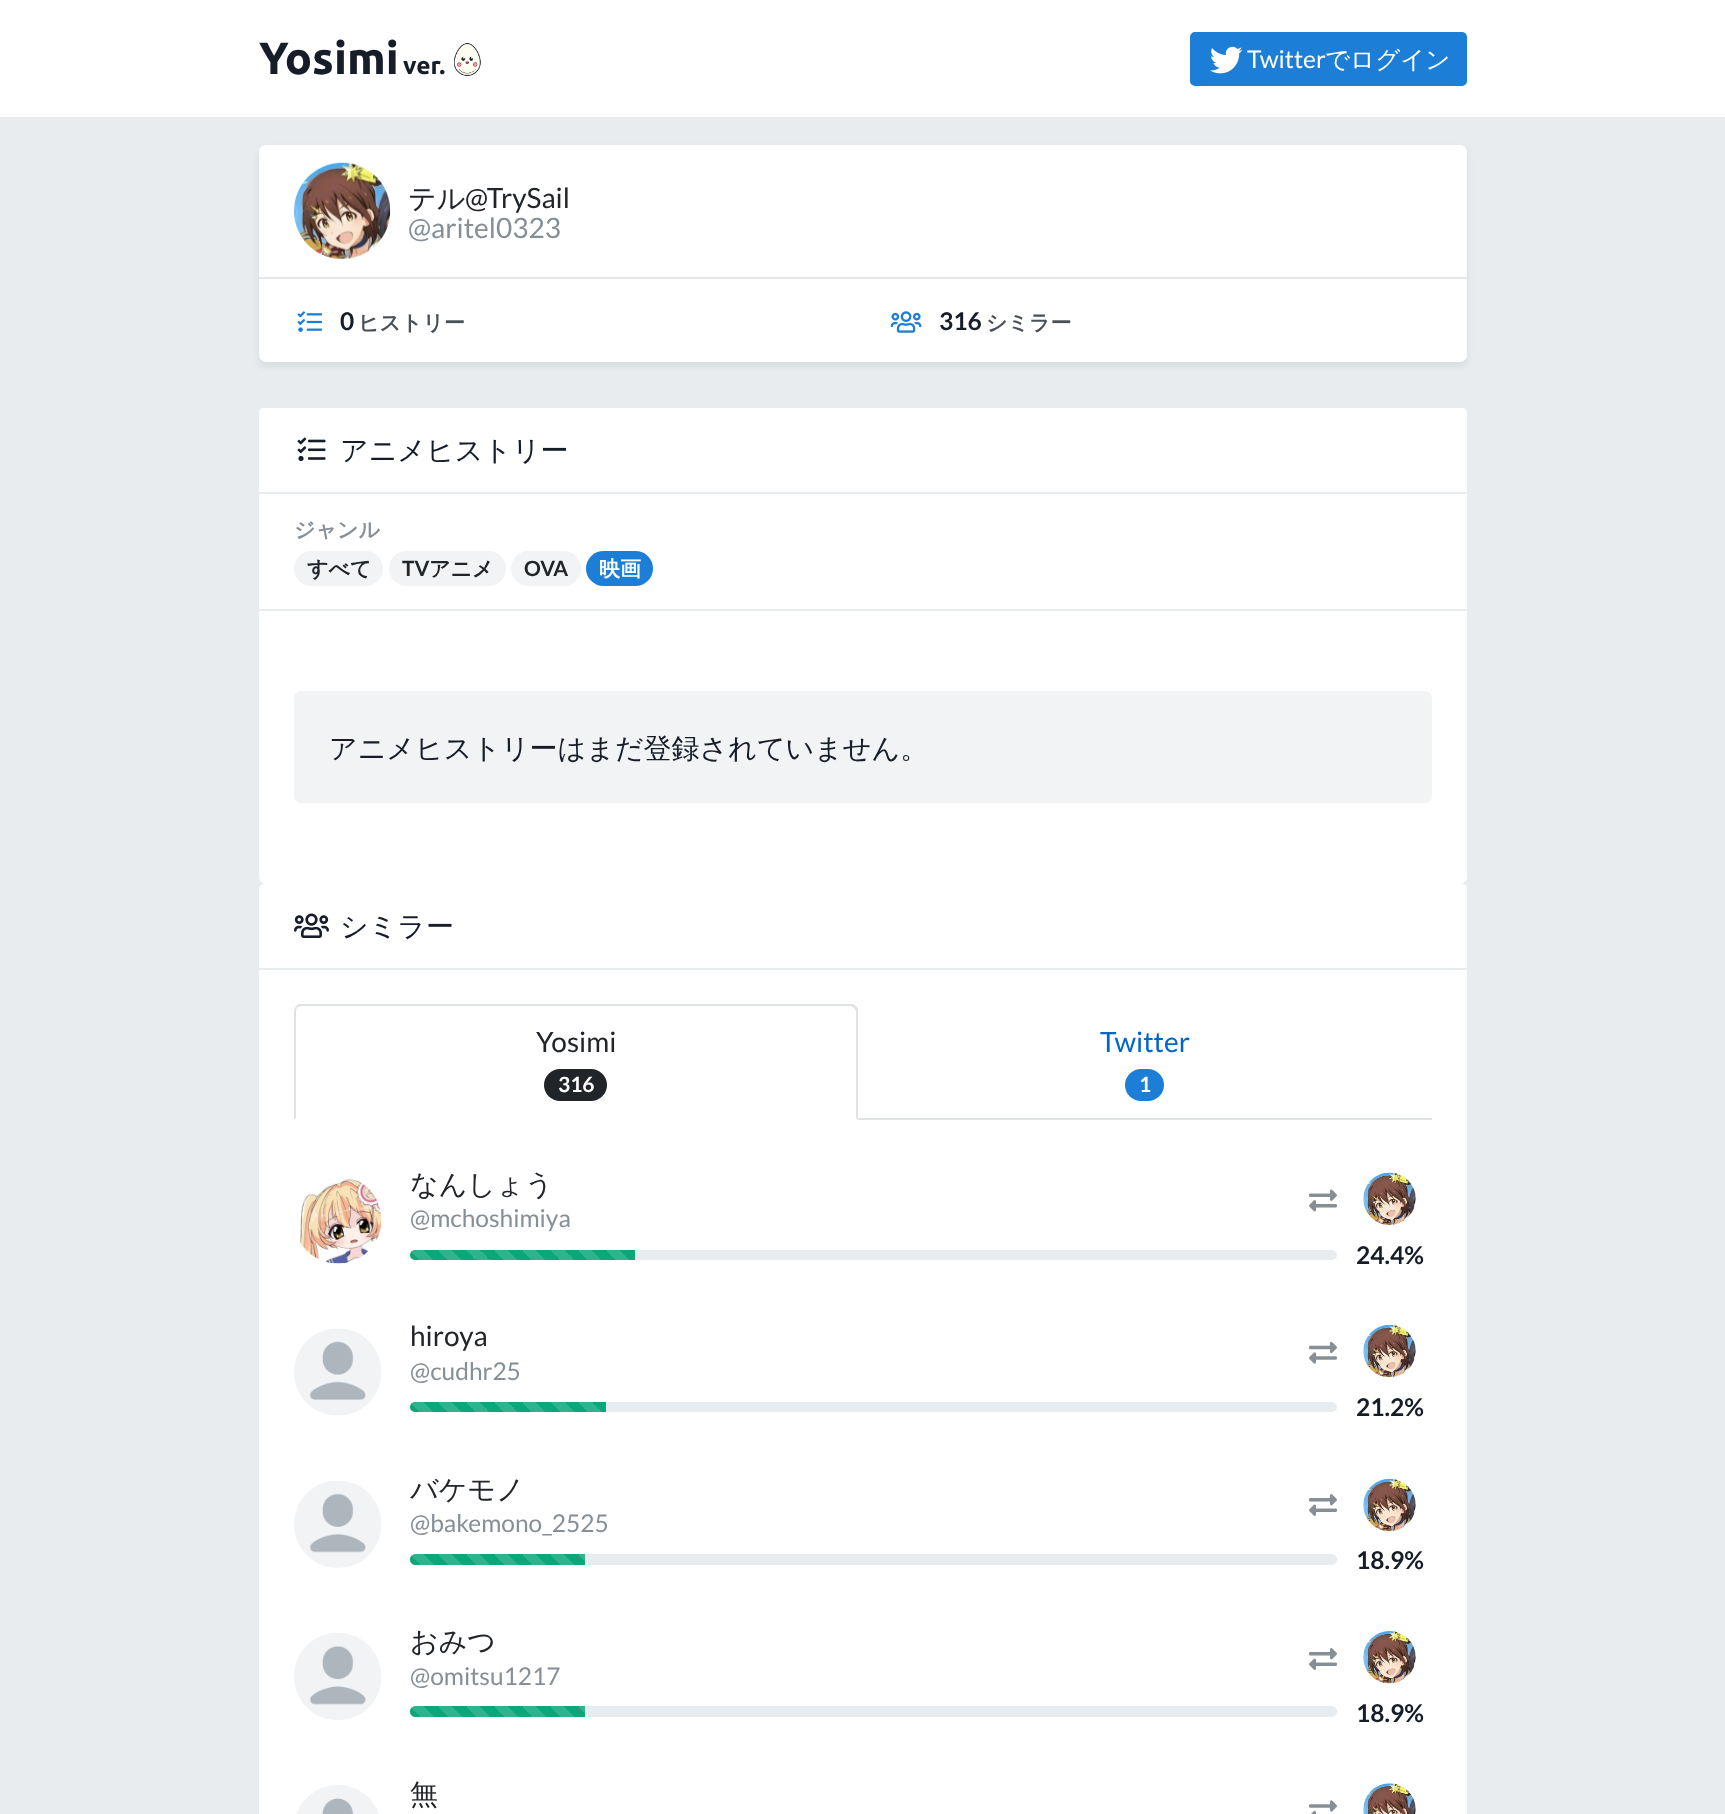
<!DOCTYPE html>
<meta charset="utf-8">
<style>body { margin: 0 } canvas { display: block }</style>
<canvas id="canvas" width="1725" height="1814"></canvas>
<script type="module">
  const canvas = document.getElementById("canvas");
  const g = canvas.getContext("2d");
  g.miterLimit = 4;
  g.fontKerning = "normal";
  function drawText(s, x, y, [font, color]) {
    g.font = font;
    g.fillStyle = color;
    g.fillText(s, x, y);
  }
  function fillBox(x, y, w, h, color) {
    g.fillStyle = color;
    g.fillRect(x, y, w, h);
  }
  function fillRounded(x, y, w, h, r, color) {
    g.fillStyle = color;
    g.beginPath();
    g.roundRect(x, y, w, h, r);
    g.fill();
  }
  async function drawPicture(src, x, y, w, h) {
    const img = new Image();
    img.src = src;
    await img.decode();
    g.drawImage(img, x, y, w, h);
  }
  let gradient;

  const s1 = ["bold 45px Ubuntu", "#161D29"];
  const s2 = ["bold 24.5px Ubuntu", "#161D29"];
  const s3 = ["24.5px Lato", "#FFFFFF"];
  const s4 = ["500 24.5px WenQuanYi Zen Hei", "#FFFFFF"];
  const s5 = ["500 28px WenQuanYi Zen Hei", "#212529"];
  const s6 = ["28px Lato", "#212529"];
  const s7 = ["28px Lato", "#868E96"];
  const s8 = ["bold 24.5px Lato", "#161D29"];
  const s9 = ["bold 21px WenQuanYi Zen Hei", "#495057"];
  const s10 = ["500 28px WenQuanYi Zen Hei", "#161D29"];
  const s11 = ["bold 21px WenQuanYi Zen Hei", "#868E96"];
  const s12 = ["bold 21px WenQuanYi Zen Hei", "#212529"];
  const s13 = ["bold 21px Lato", "#212529"];
  const s14 = ["bold 21px WenQuanYi Zen Hei", "#FFFFFF"];
  const s15 = ["bold 21px Lato", "#FFFFFF"];
  const s16 = ["28px Lato", "#0066CC"];
  const s17 = ["24.5px Lato", "#868E96"];

  fillBox(0, 0, 1725, 1814, "#E9ECEF");
  fillBox(0, 0, 1725, 117, "#FFFFFF");
  drawText("Yosimi", 259, 74, s1);
  drawText("ver.", 403, 74, s2);
  await drawPicture("pic1.png", 454, 43, 27, 33);
  g.fillStyle = "#1C7ED6";
  g.beginPath();
  g.roundRect(1191, 33, 275, 52, 4);
  g.fill();
  g.strokeStyle = "#1C7ED6";
  g.lineWidth = 2;
  g.stroke();
  await drawPicture("pic2.png", 1210, 46, 33, 28);
  drawText("Twitter", 1247, 68, s3);
  drawText("でログイン", 1325, 68, s4);
  g.fillStyle = "rgba(0, 0, 0, 0.07)";
  g.filter = "blur(3.5px)";
  g.beginPath();
  g.roundRect(259, 149, 1208, 217, 7);
  g.fill();
  g.filter = "none";
  fillRounded(259, 145, 1208, 217, 7, "#FFFFFF");
  await drawPicture("pic3.png", 294, 162, 97, 98);
  drawText("テル", 408, 208, s5);
  drawText("@TrySail", 465, 208, s6);
  drawText("@aritel0323", 408, 238, s7);
  fillBox(259, 277, 1208, 2, "#E6E6E6");
  await drawPicture("pic4.png", 297, 311, 25, 21);
  drawText("0", 340, 330, s8);
  drawText("ヒストリー", 358, 330, s9);
  await drawPicture("pic5.png", 890, 311, 32, 22);
  drawText("316", 939, 330, s8);
  drawText("シミラー", 986, 330, s9);
  fillRounded(259, 408, 1208, 476, 7, "#FFFFFF");
  g.beginPath();
  g.roundRect(259, 408, 1208, 86, [5, 5, 0, 0]);
  g.fill();
  fillBox(259, 492, 1208, 2, "#E9ECEF");
  await drawPicture("pic6.png", 297, 437, 29, 25);
  drawText("アニメヒストリー", 340, 460, s10);
  fillBox(259, 609, 1208, 2, "#E9ECEF");
  drawText("ジャンル", 294, 537, s11);
  fillRounded(294, 551, 89, 35, 17.5, "#F1F3F5");
  drawText("すべて", 307, 576, s12);
  fillRounded(389, 551, 117, 35, 17.5, "#F1F3F5");
  drawText("TV", 402, 576, s13);
  drawText("アニメ", 429, 576, s12);
  fillRounded(511, 551, 70, 35, 17.5, "#F1F3F5");
  drawText("OVA", 524, 576, s13);
  fillRounded(586, 551, 67, 35, 17.5, "#1C7ED6");
  drawText("映画", 599, 576, s14);
  fillRounded(294, 691, 1138, 112, 7, "#F1F3F5");
  drawText("アニメヒストリーはまだ登録されていません。", 329, 758, s10);
  fillRounded(259, 884, 1208, 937, 7, "#FFFFFF");
  g.beginPath();
  g.roundRect(259, 884, 1208, 86, [5, 5, 0, 0]);
  g.fill();
  fillBox(259, 968, 1208, 2, "#E9ECEF");
  await drawPicture("pic7.png", 294, 913, 35, 25);
  drawText("シミラー", 340, 936, s10);
  fillBox(858, 1118, 574, 2, "#DEE2E6");
  g.beginPath();
  g.moveTo(301, 1006);
  g.bezierCurveTo(300, 1006, 298, 1007, 297, 1008);
  g.lineTo(296, 1006);
  g.lineTo(299, 1004);
  g.lineTo(853, 1004);
  g.lineTo(856, 1006);
  g.lineTo(854, 1008);
  g.bezierCurveTo(853, 1007, 852, 1006, 850, 1006);
  g.closePath();
  g.fill();
  g.beginPath();
  g.moveTo(858, 1009);
  g.lineTo(858, 1120);
  g.lineTo(856, 1118);
  g.lineTo(856, 1011);
  g.lineTo(854, 1008);
  g.lineTo(856, 1006);
  g.closePath();
  g.fill();
  g.fillStyle = "#FFFFFF";
  g.beginPath();
  g.moveTo(858, 1120);
  g.lineTo(856, 1118);
  g.lineTo(296, 1118);
  g.lineTo(294, 1120);
  g.closePath();
  g.fill();
  g.fillStyle = "#DEE2E6";
  g.beginPath();
  g.moveTo(294, 1120);
  g.lineTo(296, 1118);
  g.lineTo(296, 1012);
  g.bezierCurveTo(296, 1010, 296, 1009, 297, 1008);
  g.lineTo(296, 1006);
  g.bezierCurveTo(295, 1008, 294, 1010, 294, 1012);
  g.closePath();
  g.fill();
  drawText("Yosimi", 536, 1052, s6);
  fillRounded(544, 1069, 63, 32, 16, "#212529");
  drawText("316", 558, 1092, s15);
  drawText("Twitter", 1100, 1052, s16);
  fillRounded(1125, 1069, 39, 32, 16, "#1C7ED6");
  drawText("1", 1139, 1092, s15);
  await drawPicture("pic8.png", 300, 1177, 82, 87);
  drawText("なんしょう", 410, 1194, s5);
  drawText("@mchoshimiya", 410, 1227, s17);
  await drawPicture("pic9.png", 1309, 1189, 28, 23);
  await drawPicture("pic10.png", 1363, 1172, 53, 53);
  fillRounded(410, 1250, 927, 10, 5, "#E9ECEF");
  g.fillStyle = "#0CA678";
  g.beginPath();
  g.roundRect(410, 1250, 225, 10, [5, 0, 0, 5]);
  g.fill();
  gradient = g.createLinearGradient(410, 1278, 438, 1250);
  gradient.addColorStop(0.25, "rgba(255, 255, 255, 0.15)");
  gradient.addColorStop(0.25, "rgba(255, 255, 255, 0)");
  gradient.addColorStop(0.5, "rgba(255, 255, 255, 0)");
  gradient.addColorStop(0.5, "rgba(255, 255, 255, 0.15)");
  gradient.addColorStop(0.75, "rgba(255, 255, 255, 0.15)");
  gradient.addColorStop(0.75, "rgba(255, 255, 255, 0)");
  gradient.addColorStop(1, "rgba(0, 0, 0, 0)");
  g.fillStyle = gradient;
  g.beginPath();
  g.roundRect(410, 1250, 28, 10, [5, 0, 0, 5]);
  g.fill();
  gradient = g.createLinearGradient(438, 1278, 466, 1250);
  gradient.addColorStop(0.25, "#30B38C");
  gradient.addColorStop(0.25, "#0CA678");
  gradient.addColorStop(0.5, "#0CA678");
  gradient.addColorStop(0.5, "#30B38C");
  gradient.addColorStop(0.75, "#30B38C");
  gradient.addColorStop(0.75, "#0CA678");
  gradient.addColorStop(1, "#0CA678");
  g.fillStyle = gradient;
  g.fillRect(439, 1250, 23, 10);
  gradient = g.createLinearGradient(466, 1278, 494, 1250);
  gradient.addColorStop(0.25, "#30B38C");
  gradient.addColorStop(0.25, "#0CA678");
  gradient.addColorStop(0.5, "#0CA678");
  gradient.addColorStop(0.5, "#30B38C");
  gradient.addColorStop(0.75, "#30B38C");
  gradient.addColorStop(0.75, "#0CA678");
  gradient.addColorStop(1, "#0CA678");
  g.fillStyle = gradient;
  g.fillRect(467, 1250, 23, 10);
  gradient = g.createLinearGradient(494, 1278, 522, 1250);
  gradient.addColorStop(0.25, "#30B38C");
  gradient.addColorStop(0.25, "#0CA678");
  gradient.addColorStop(0.5, "#0CA678");
  gradient.addColorStop(0.5, "#30B38C");
  gradient.addColorStop(0.75, "#30B38C");
  gradient.addColorStop(0.75, "#0CA678");
  gradient.addColorStop(1, "#0CA678");
  g.fillStyle = gradient;
  g.fillRect(495, 1250, 23, 10);
  gradient = g.createLinearGradient(522, 1278, 550, 1250);
  gradient.addColorStop(0.25, "#30B38C");
  gradient.addColorStop(0.25, "#0CA678");
  gradient.addColorStop(0.5, "#0CA678");
  gradient.addColorStop(0.5, "#30B38C");
  gradient.addColorStop(0.75, "#30B38C");
  gradient.addColorStop(0.75, "#0CA678");
  gradient.addColorStop(1, "#0CA678");
  g.fillStyle = gradient;
  g.fillRect(523, 1250, 23, 10);
  gradient = g.createLinearGradient(550, 1278, 578, 1250);
  gradient.addColorStop(0.25, "#30B38C");
  gradient.addColorStop(0.25, "#0CA678");
  gradient.addColorStop(0.5, "#0CA678");
  gradient.addColorStop(0.5, "#30B38C");
  gradient.addColorStop(0.75, "#30B38C");
  gradient.addColorStop(0.75, "#0CA678");
  gradient.addColorStop(1, "#0CA678");
  g.fillStyle = gradient;
  g.fillRect(551, 1250, 23, 10);
  gradient = g.createLinearGradient(578, 1278, 606, 1250);
  gradient.addColorStop(0.25, "#30B38C");
  gradient.addColorStop(0.25, "#0CA678");
  gradient.addColorStop(0.5, "#0CA678");
  gradient.addColorStop(0.5, "#30B38C");
  gradient.addColorStop(0.75, "#30B38C");
  gradient.addColorStop(0.75, "#0CA678");
  gradient.addColorStop(1, "#0CA678");
  g.fillStyle = gradient;
  g.fillRect(579, 1250, 23, 10);
  gradient = g.createLinearGradient(606, 1278, 634, 1250);
  gradient.addColorStop(0.25, "#30B38C");
  gradient.addColorStop(0.25, "#0CA678");
  gradient.addColorStop(0.5, "#0CA678");
  gradient.addColorStop(0.5, "#30B38C");
  gradient.addColorStop(0.75, "#30B38C");
  gradient.addColorStop(0.75, "#0CA678");
  gradient.addColorStop(1, "#0CA678");
  g.fillStyle = gradient;
  g.fillRect(607, 1250, 23, 10);
  drawText("24.4%", 1356, 1264, s8);
  await drawPicture("pic11.png", 294, 1328, 87, 88);
  drawText("hiroya", 410, 1346, s6);
  drawText("@cudhr25", 410, 1380, s17);
  await drawPicture("pic12.png", 1309, 1341, 28, 23);
  await drawPicture("pic13.png", 1363, 1324, 53, 54);
  fillRounded(410, 1402, 927, 10, 5, "#E9ECEF");
  g.fillStyle = "#0CA678";
  g.beginPath();
  g.roundRect(410, 1402, 196, 10, [5, 0, 0, 5]);
  g.fill();
  gradient = g.createLinearGradient(410, 1430, 438, 1402);
  gradient.addColorStop(0.25, "rgba(255, 255, 255, 0.15)");
  gradient.addColorStop(0.25, "rgba(255, 255, 255, 0)");
  gradient.addColorStop(0.5, "rgba(255, 255, 255, 0)");
  gradient.addColorStop(0.5, "rgba(255, 255, 255, 0.15)");
  gradient.addColorStop(0.75, "rgba(255, 255, 255, 0.15)");
  gradient.addColorStop(0.75, "rgba(255, 255, 255, 0)");
  gradient.addColorStop(1, "rgba(0, 0, 0, 0)");
  g.fillStyle = gradient;
  g.beginPath();
  g.roundRect(410, 1402, 28, 10, [5, 0, 0, 5]);
  g.fill();
  gradient = g.createLinearGradient(438, 1430, 466, 1402);
  gradient.addColorStop(0.25, "#30B38C");
  gradient.addColorStop(0.25, "#0CA678");
  gradient.addColorStop(0.5, "#0CA678");
  gradient.addColorStop(0.5, "#30B38C");
  gradient.addColorStop(0.75, "#30B38C");
  gradient.addColorStop(0.75, "#0CA678");
  gradient.addColorStop(1, "#0CA678");
  g.fillStyle = gradient;
  g.fillRect(439, 1402, 23, 10);
  gradient = g.createLinearGradient(466, 1430, 494, 1402);
  gradient.addColorStop(0.25, "#30B38C");
  gradient.addColorStop(0.25, "#0CA678");
  gradient.addColorStop(0.5, "#0CA678");
  gradient.addColorStop(0.5, "#30B38C");
  gradient.addColorStop(0.75, "#30B38C");
  gradient.addColorStop(0.75, "#0CA678");
  gradient.addColorStop(1, "#0CA678");
  g.fillStyle = gradient;
  g.fillRect(467, 1402, 23, 10);
  gradient = g.createLinearGradient(494, 1430, 522, 1402);
  gradient.addColorStop(0.25, "#30B38C");
  gradient.addColorStop(0.25, "#0CA678");
  gradient.addColorStop(0.5, "#0CA678");
  gradient.addColorStop(0.5, "#30B38C");
  gradient.addColorStop(0.75, "#30B38C");
  gradient.addColorStop(0.75, "#0CA678");
  gradient.addColorStop(1, "#0CA678");
  g.fillStyle = gradient;
  g.fillRect(495, 1402, 23, 10);
  gradient = g.createLinearGradient(522, 1430, 550, 1402);
  gradient.addColorStop(0.25, "#30B38C");
  gradient.addColorStop(0.25, "#0CA678");
  gradient.addColorStop(0.5, "#0CA678");
  gradient.addColorStop(0.5, "#30B38C");
  gradient.addColorStop(0.75, "#30B38C");
  gradient.addColorStop(0.75, "#0CA678");
  gradient.addColorStop(1, "#0CA678");
  g.fillStyle = gradient;
  g.fillRect(523, 1402, 23, 10);
  gradient = g.createLinearGradient(550, 1430, 578, 1402);
  gradient.addColorStop(0.25, "#30B38C");
  gradient.addColorStop(0.25, "#0CA678");
  gradient.addColorStop(0.5, "#0CA678");
  gradient.addColorStop(0.5, "#30B38C");
  gradient.addColorStop(0.75, "#30B38C");
  gradient.addColorStop(0.75, "#0CA678");
  gradient.addColorStop(1, "#0CA678");
  g.fillStyle = gradient;
  g.fillRect(551, 1402, 23, 10);
  gradient = g.createLinearGradient(578, 1430, 606, 1402);
  gradient.addColorStop(0.25, "#30B38C");
  gradient.addColorStop(0.25, "#0CA678");
  gradient.addColorStop(0.5, "#0CA678");
  gradient.addColorStop(0.5, "#30B38C");
  gradient.addColorStop(0.75, "#30B38C");
  gradient.addColorStop(0.75, "#0CA678");
  gradient.addColorStop(1, "#0CA678");
  g.fillStyle = gradient;
  g.fillRect(579, 1402, 23, 10);
  drawText("21.2%", 1356, 1416, s8);
  await drawPicture("pic14.png", 294, 1481, 87, 87);
  drawText("バケモノ", 410, 1499, s5);
  drawText("@bakemono_2525", 410, 1532, s17);
  await drawPicture("pic15.png", 1309, 1494, 28, 22);
  await drawPicture("pic16.png", 1363, 1478, 53, 54);
  fillRounded(410, 1554, 927, 11, 5.5, "#E9ECEF");
  g.fillStyle = "#0CA678";
  g.beginPath();
  g.roundRect(410, 1554, 175, 11, [5.5, 0, 0, 5.5]);
  g.fill();
  gradient = g.createLinearGradient(410, 1582, 438, 1554);
  gradient.addColorStop(0.25, "rgba(255, 255, 255, 0.15)");
  gradient.addColorStop(0.25, "rgba(255, 255, 255, 0)");
  gradient.addColorStop(0.5, "rgba(255, 255, 255, 0)");
  gradient.addColorStop(0.5, "rgba(255, 255, 255, 0.15)");
  gradient.addColorStop(0.75, "rgba(255, 255, 255, 0.15)");
  gradient.addColorStop(0.75, "rgba(255, 255, 255, 0)");
  gradient.addColorStop(1, "rgba(0, 0, 0, 0)");
  g.fillStyle = gradient;
  g.beginPath();
  g.roundRect(410, 1554, 28, 11, [5.5, 0, 0, 5.5]);
  g.fill();
  gradient = g.createLinearGradient(438, 1582, 466, 1554);
  gradient.addColorStop(0.25, "#30B38C");
  gradient.addColorStop(0.25, "#0CA678");
  gradient.addColorStop(0.5, "#0CA678");
  gradient.addColorStop(0.5, "#30B38C");
  gradient.addColorStop(0.75, "#30B38C");
  gradient.addColorStop(0.75, "#0CA678");
  gradient.addColorStop(1, "#0CA678");
  g.fillStyle = gradient;
  g.fillRect(439, 1554, 24, 11);
  gradient = g.createLinearGradient(466, 1582, 494, 1554);
  gradient.addColorStop(0.25, "#30B38C");
  gradient.addColorStop(0.25, "#0CA678");
  gradient.addColorStop(0.5, "#0CA678");
  gradient.addColorStop(0.5, "#30B38C");
  gradient.addColorStop(0.75, "#30B38C");
  gradient.addColorStop(0.75, "#0CA678");
  gradient.addColorStop(1, "#0CA678");
  g.fillStyle = gradient;
  g.fillRect(467, 1554, 24, 11);
  gradient = g.createLinearGradient(494, 1582, 522, 1554);
  gradient.addColorStop(0.25, "#30B38C");
  gradient.addColorStop(0.25, "#0CA678");
  gradient.addColorStop(0.5, "#0CA678");
  gradient.addColorStop(0.5, "#30B38C");
  gradient.addColorStop(0.75, "#30B38C");
  gradient.addColorStop(0.75, "#0CA678");
  gradient.addColorStop(1, "#0CA678");
  g.fillStyle = gradient;
  g.fillRect(495, 1554, 24, 11);
  gradient = g.createLinearGradient(522, 1582, 550, 1554);
  gradient.addColorStop(0.25, "#30B38C");
  gradient.addColorStop(0.25, "#0CA678");
  gradient.addColorStop(0.5, "#0CA678");
  gradient.addColorStop(0.5, "#30B38C");
  gradient.addColorStop(0.75, "#30B38C");
  gradient.addColorStop(0.75, "#0CA678");
  gradient.addColorStop(1, "#0CA678");
  g.fillStyle = gradient;
  g.fillRect(523, 1554, 24, 11);
  gradient = g.createLinearGradient(550, 1582, 578, 1554);
  gradient.addColorStop(0.25, "#30B38C");
  gradient.addColorStop(0.25, "#0CA678");
  gradient.addColorStop(0.5, "#0CA678");
  gradient.addColorStop(0.5, "#30B38C");
  gradient.addColorStop(0.75, "#30B38C");
  gradient.addColorStop(0.75, "#0CA678");
  gradient.addColorStop(1, "#0CA678");
  g.fillStyle = gradient;
  g.fillRect(551, 1554, 24, 11);
  gradient = g.createLinearGradient(578, 1582, 606, 1554);
  gradient.addColorStop(0.25, "#30B38C");
  gradient.addColorStop(0.25, "#0CA678");
  gradient.addColorStop(0.5, "#0CA678");
  gradient.addColorStop(0.5, "#30B38C");
  gradient.addColorStop(0.75, "#30B38C");
  gradient.addColorStop(0.75, "#0CA678");
  gradient.addColorStop(1, "#0CA678");
  g.fillStyle = gradient;
  g.fillRect(579, 1554, 6, 11);
  drawText("18.9%", 1356, 1569, s8);
  await drawPicture("pic17.png", 294, 1633, 87, 87);
  drawText("おみつ", 410, 1651, s5);
  drawText("@omitsu1217", 410, 1685, s17);
  await drawPicture("pic15.png", 1309, 1648, 28, 22);
  await drawPicture("pic18.png", 1363, 1631, 53, 53);
  fillRounded(410, 1706, 927, 11, 5.5, "#E9ECEF");
  g.fillStyle = "#0CA678";
  g.beginPath();
  g.roundRect(410, 1706, 175, 11, [5.5, 0, 0, 5.5]);
  g.fill();
  gradient = g.createLinearGradient(410, 1734, 438, 1706);
  gradient.addColorStop(0.25, "rgba(255, 255, 255, 0.15)");
  gradient.addColorStop(0.25, "rgba(255, 255, 255, 0)");
  gradient.addColorStop(0.5, "rgba(255, 255, 255, 0)");
  gradient.addColorStop(0.5, "rgba(255, 255, 255, 0.15)");
  gradient.addColorStop(0.75, "rgba(255, 255, 255, 0.15)");
  gradient.addColorStop(0.75, "rgba(255, 255, 255, 0)");
  gradient.addColorStop(1, "rgba(0, 0, 0, 0)");
  g.fillStyle = gradient;
  g.beginPath();
  g.roundRect(410, 1706, 28, 11, [5.5, 0, 0, 5.5]);
  g.fill();
  gradient = g.createLinearGradient(438, 1734, 466, 1706);
  gradient.addColorStop(0.25, "#30B38C");
  gradient.addColorStop(0.25, "#0CA678");
  gradient.addColorStop(0.5, "#0CA678");
  gradient.addColorStop(0.5, "#30B38C");
  gradient.addColorStop(0.75, "#30B38C");
  gradient.addColorStop(0.75, "#0CA678");
  gradient.addColorStop(1, "#0CA678");
  g.fillStyle = gradient;
  g.fillRect(439, 1706, 24, 11);
  gradient = g.createLinearGradient(466, 1734, 494, 1706);
  gradient.addColorStop(0.25, "#30B38C");
  gradient.addColorStop(0.25, "#0CA678");
  gradient.addColorStop(0.5, "#0CA678");
  gradient.addColorStop(0.5, "#30B38C");
  gradient.addColorStop(0.75, "#30B38C");
  gradient.addColorStop(0.75, "#0CA678");
  gradient.addColorStop(1, "#0CA678");
  g.fillStyle = gradient;
  g.fillRect(467, 1706, 24, 11);
  gradient = g.createLinearGradient(494, 1734, 522, 1706);
  gradient.addColorStop(0.25, "#30B38C");
  gradient.addColorStop(0.25, "#0CA678");
  gradient.addColorStop(0.5, "#0CA678");
  gradient.addColorStop(0.5, "#30B38C");
  gradient.addColorStop(0.75, "#30B38C");
  gradient.addColorStop(0.75, "#0CA678");
  gradient.addColorStop(1, "#0CA678");
  g.fillStyle = gradient;
  g.fillRect(495, 1706, 24, 11);
  gradient = g.createLinearGradient(522, 1734, 550, 1706);
  gradient.addColorStop(0.25, "#30B38C");
  gradient.addColorStop(0.25, "#0CA678");
  gradient.addColorStop(0.5, "#0CA678");
  gradient.addColorStop(0.5, "#30B38C");
  gradient.addColorStop(0.75, "#30B38C");
  gradient.addColorStop(0.75, "#0CA678");
  gradient.addColorStop(1, "#0CA678");
  g.fillStyle = gradient;
  g.fillRect(523, 1706, 24, 11);
  gradient = g.createLinearGradient(550, 1734, 578, 1706);
  gradient.addColorStop(0.25, "#30B38C");
  gradient.addColorStop(0.25, "#0CA678");
  gradient.addColorStop(0.5, "#0CA678");
  gradient.addColorStop(0.5, "#30B38C");
  gradient.addColorStop(0.75, "#30B38C");
  gradient.addColorStop(0.75, "#0CA678");
  gradient.addColorStop(1, "#0CA678");
  g.fillStyle = gradient;
  g.fillRect(551, 1706, 24, 11);
  gradient = g.createLinearGradient(578, 1734, 606, 1706);
  gradient.addColorStop(0.25, "#30B38C");
  gradient.addColorStop(0.25, "#0CA678");
  gradient.addColorStop(0.5, "#0CA678");
  gradient.addColorStop(0.5, "#30B38C");
  gradient.addColorStop(0.75, "#30B38C");
  gradient.addColorStop(0.75, "#0CA678");
  gradient.addColorStop(1, "#0CA678");
  g.fillStyle = gradient;
  g.fillRect(579, 1706, 6, 11);
  drawText("18.9%", 1356, 1722, s8);
  await drawPicture("pic19.png", 297, 1785, 82, 29);
  drawText("無", 410, 1804, s5);
  await drawPicture("pic20.png", 1309, 1800, 28, 14);
  await drawPicture("pic21.png", 1363, 1783, 53, 31);
</script>
